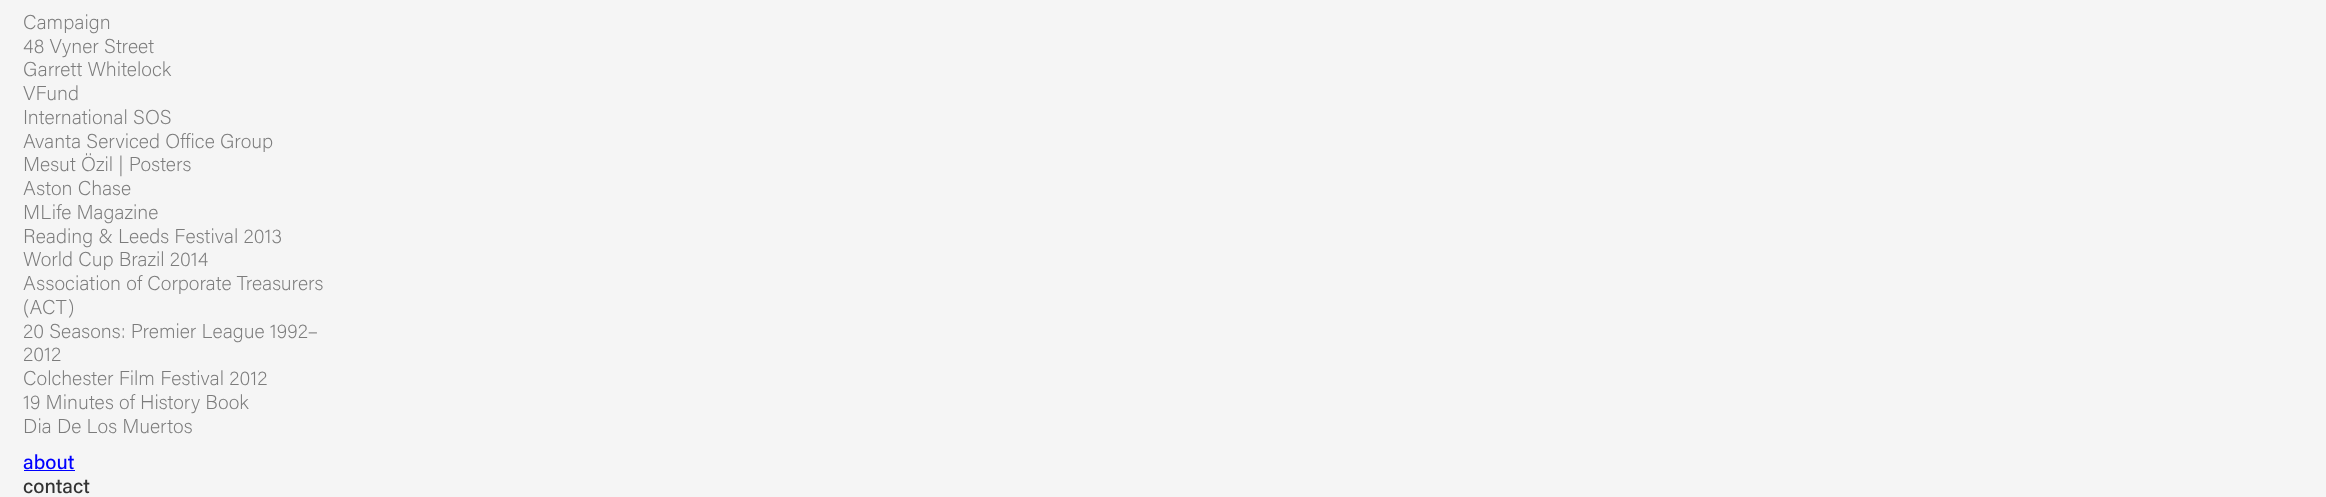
<!DOCTYPE html>
<meta charset="utf-8">
<style>body { margin: 0 } canvas { display: block }</style>
<canvas id="canvas" width="2326" height="497"></canvas>
<script type="module">
  const canvas = document.getElementById("canvas");
  const g = canvas.getContext("2d");
  g.miterLimit = 4;
  g.fontKerning = "normal";
  function drawText(s, x, y, [font, color]) {
    g.font = font;
    g.fillStyle = color;
    g.fillText(s, x, y);
  }
  function fillBox(x, y, w, h, color) {
    g.fillStyle = color;
    g.fillRect(x, y, w, h);
  }

  const s1 = ["200 20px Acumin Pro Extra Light", "#7C7C7C"];
  const s2 = ["500 20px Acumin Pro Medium", "#0000FF"];
  const s3 = ["500 20px Acumin Pro Medium", "#333333"];

  fillBox(0, 0, 2326, 497, "#F5F5F5");
  drawText("Campaign", 23, 29, s1);
  drawText("48 Vyner Street", 23, 53, s1);
  drawText("Garrett Whitelock", 23, 76, s1);
  drawText("VFund", 23, 100, s1);
  drawText("International SOS", 23, 124, s1);
  drawText("Avanta Serviced Office Group", 23, 148, s1);
  drawText("Mesut Özil | Posters", 23, 171, s1);
  drawText("Aston Chase", 23, 195, s1);
  drawText("MLife Magazine", 23, 219, s1);
  drawText("Reading & Leeds Festival 2013", 23, 243, s1);
  drawText("World Cup Brazil 2014", 23, 266, s1);
  drawText("Association of Corporate Treasurers", 23, 290, s1);
  drawText("(ACT)", 23, 314, s1);
  drawText("20 Seasons: Premier League 1992–", 23, 338, s1);
  drawText("2012", 23, 361, s1);
  drawText("Colchester Film Festival 2012", 23, 385, s1);
  drawText("19 Minutes of History Book", 23, 409, s1);
  drawText("Dia De Los Muertos", 23, 433, s1);
  drawText("about", 23, 469, s2);
  fillBox(24, 470, 51, 1, "#0000FF");
  drawText("contact", 23, 493, s3);
</script>
